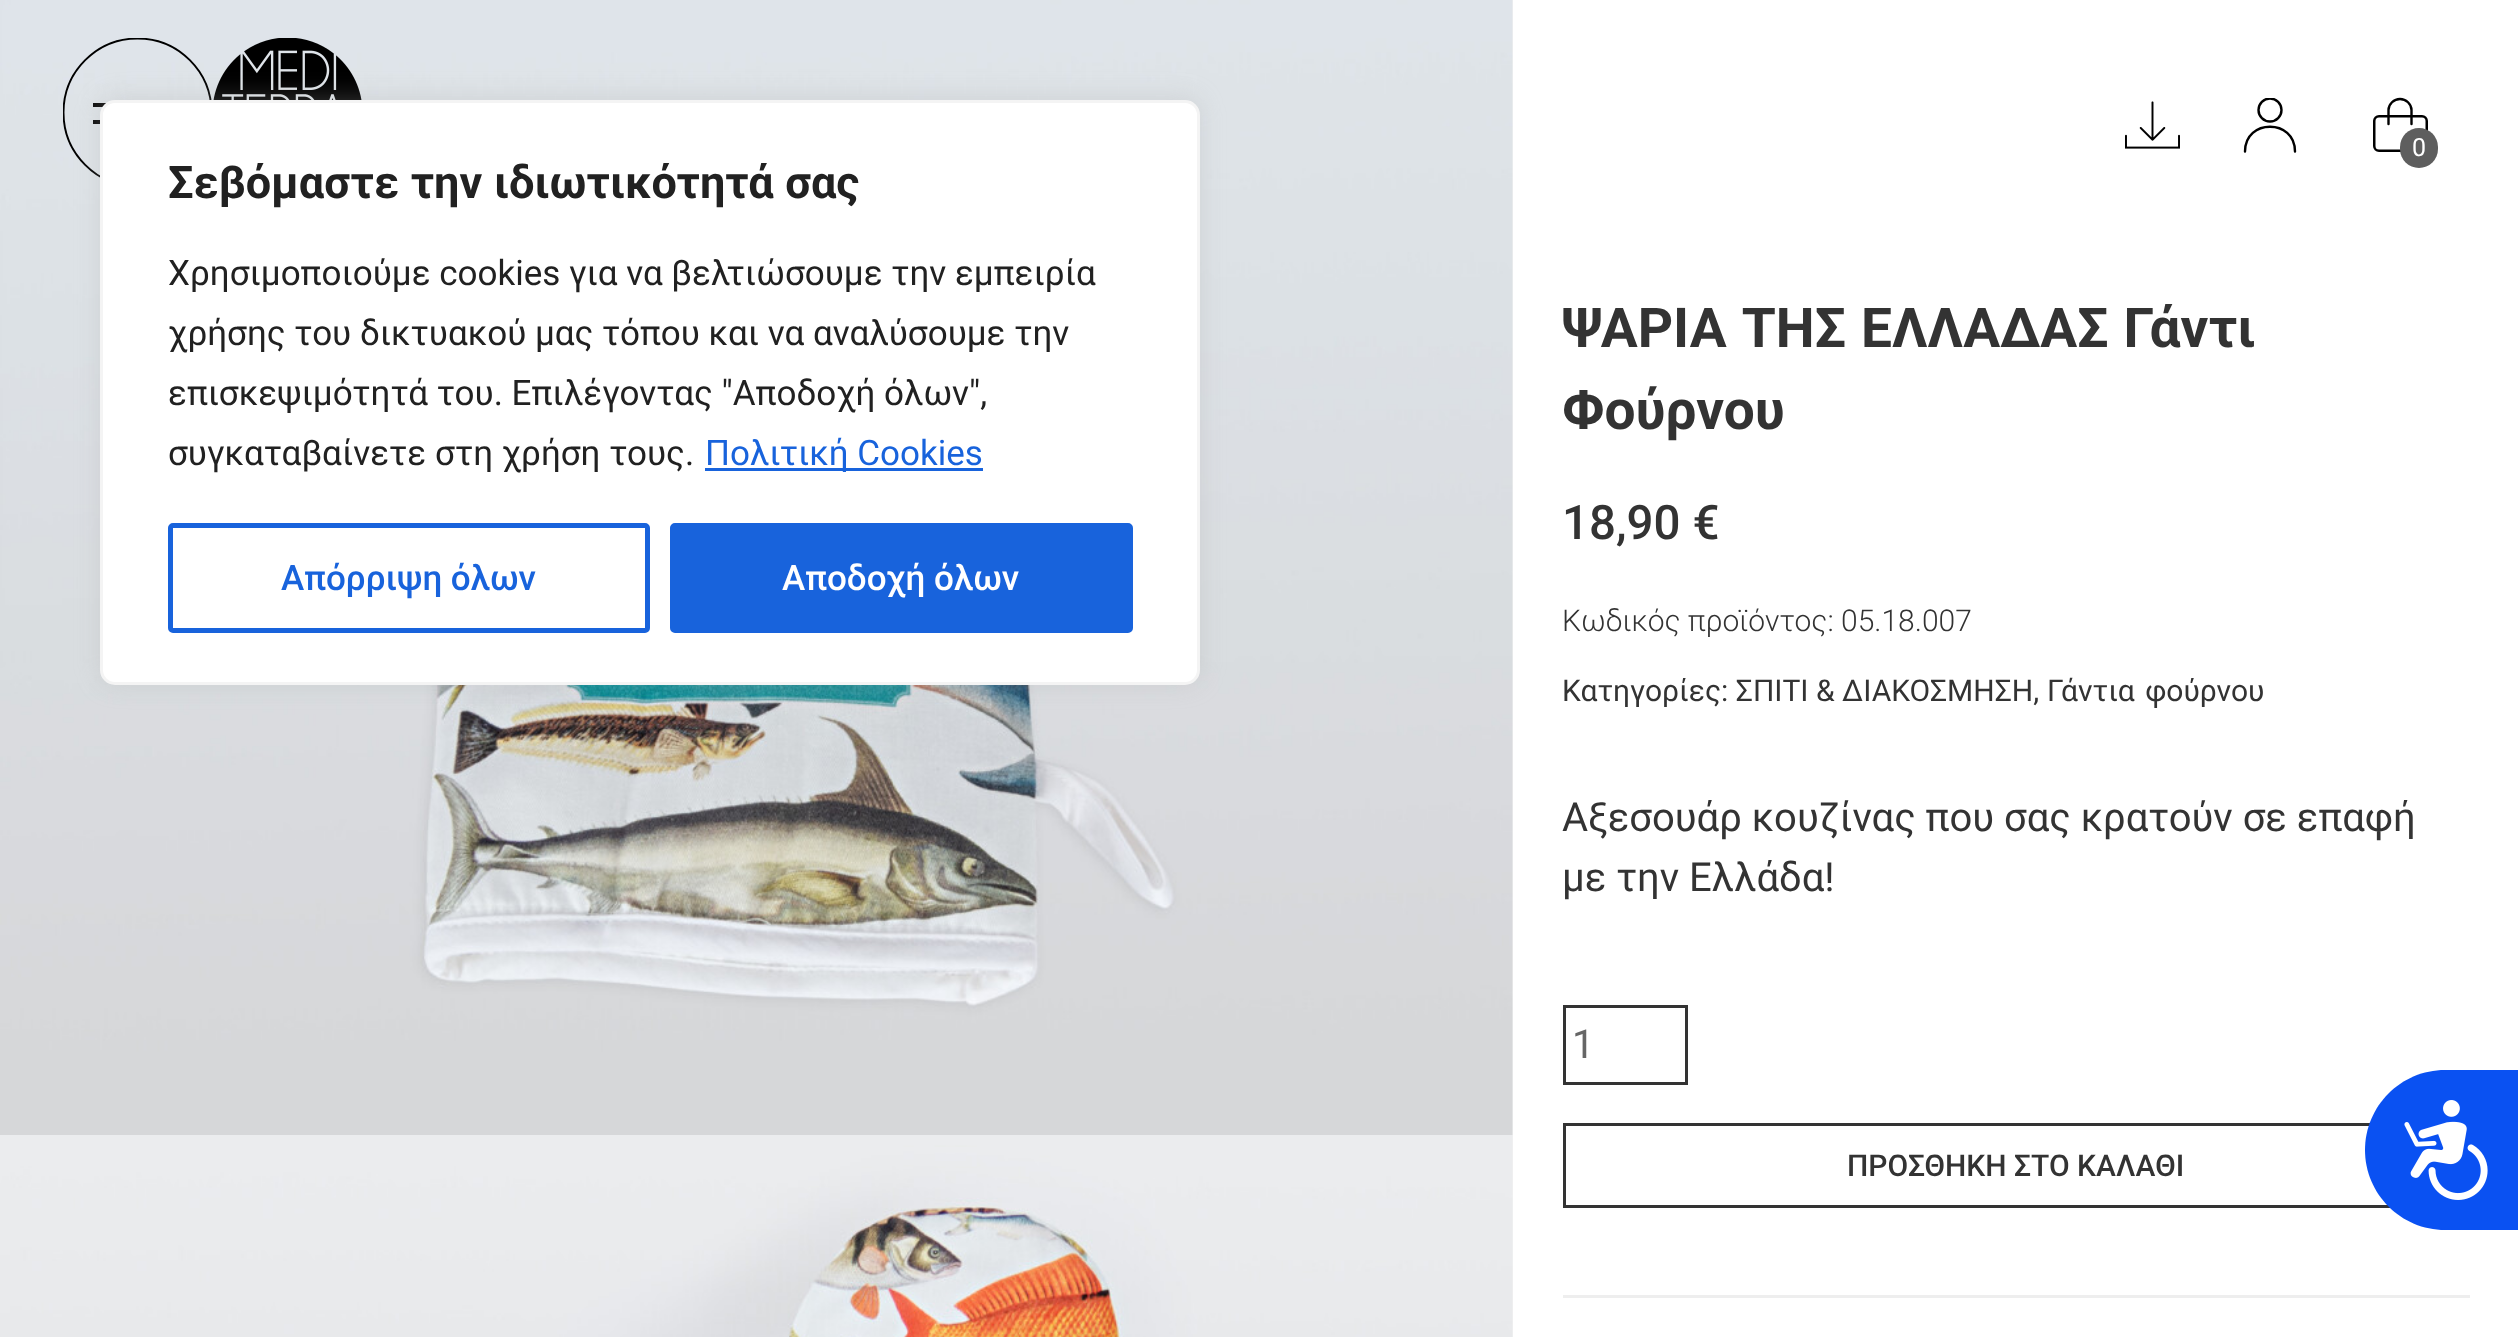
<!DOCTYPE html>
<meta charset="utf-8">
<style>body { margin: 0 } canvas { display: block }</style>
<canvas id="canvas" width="2518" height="1337"></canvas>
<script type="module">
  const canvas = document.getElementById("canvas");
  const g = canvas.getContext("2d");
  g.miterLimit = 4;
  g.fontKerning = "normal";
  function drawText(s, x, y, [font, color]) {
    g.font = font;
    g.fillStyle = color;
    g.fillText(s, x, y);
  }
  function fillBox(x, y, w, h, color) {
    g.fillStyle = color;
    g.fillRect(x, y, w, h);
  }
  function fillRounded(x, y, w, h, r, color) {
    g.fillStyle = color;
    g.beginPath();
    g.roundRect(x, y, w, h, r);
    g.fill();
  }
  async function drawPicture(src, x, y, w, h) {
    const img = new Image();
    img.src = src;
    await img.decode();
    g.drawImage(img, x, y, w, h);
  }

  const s1 = ["bold 45px Roboto", "#212121"];
  const s2 = ["35px Roboto", "#212121"];
  const s3 = ["35px Roboto", "#1863DC"];
  const s4 = ["500 35px Roboto", "#1863DC"];
  const s5 = ["500 35px Roboto", "#FFFFFF"];
  const s6 = ["25px Roboto", "#FFFFFF"];
  const s7 = ["bold 55px Roboto", "#333333"];
  const s8 = ["500 47.5px Roboto", "#333333"];
  const s9 = ["300 30px Roboto", "#333333"];
  const s10 = ["30px Roboto", "#333333"];
  const s11 = ["40px Roboto", "#333333"];
  const s12 = ["40px Roboto", "#666666"];
  const s13 = ["500 30px Roboto", "#333333"];

  fillBox(0, 0, 2518, 1337, "#FFFFFF");
  fillBox(1512, 0, 1, 1337, "#F2F2F2");
  await drawPicture("pic3.png", 0, 0, 1513, 1135);
  g.save();
  g.beginPath();
  g.rect(63, 38, 150, 150);
  g.clip();
  g.beginPath();
  g.arc(137.5, 112.5, 74, 0, Math.PI * 2);
  g.strokeStyle = "#000000";
  g.lineWidth = 1.9;
  g.stroke();
  g.restore();
  fillBox(93, 103, 13, 4, "rgba(0, 0, 0, 0.95)");
  fillBox(93, 120, 7, 4, "#0B0B0C");
  await drawPicture("pic1.png", 213, 38, 149, 62);
  g.fillStyle = "rgba(172, 171, 171, 0.3)";
  g.filter = "blur(12.5px)";
  g.beginPath();
  g.roundRect(100, 98, 1100, 585, 15);
  g.fill();
  g.filter = "none";
  g.fillStyle = "#FFFFFF";
  g.beginPath();
  g.roundRect(101.5, 101.5, 1097, 582, 13.5);
  g.fill();
  g.strokeStyle = "#F4F4F4";
  g.lineWidth = 3;
  g.stroke();
  g.wordSpacing = "0.5px";
  drawText("Σεβόμαστε την ιδιωτικότητά σας", 168, 198, s1);
  g.wordSpacing = "0px";
  drawText("Χρησιμοποιούμε cookies για να βελτιώσουμε την εμπειρία", 168, 285, s2);
  drawText("χρήσης του δικτυακού μας τόπου και να αναλύσουμε την", 168, 345, s2);
  drawText("επισκεψιμότητά του. Επιλέγοντας \"Αποδοχή όλων\",", 168, 405, s2);
  drawText("συγκαταβαίνετε στη χρήση τους.", 168, 465, s2);
  fillBox(705, 468, 278, 3, "#1863DC");
  drawText("Πολιτική Cookies", 705, 465, s3);
  g.beginPath();
  g.roundRect(170.5, 525.5, 477, 105, 2.5);
  g.strokeStyle = "#1863DC";
  g.lineWidth = 5;
  g.stroke();
  drawText("Απόρριψη όλων", 281, 590, s4);
  g.beginPath();
  g.roundRect(672.5, 525.5, 458, 105, 2.5);
  g.fill();
  g.stroke();
  drawText("Αποδοχή όλων", 782, 590, s5);
  await drawPicture("pic2.png", 2125, 101, 55, 48);
  g.beginPath();
  g.moveTo(2245, 151.5);
  g.bezierCurveTo(2245, 118.5, 2295, 118.5, 2295, 151.5);
  g.strokeStyle = "#000000";
  g.lineWidth = 2.4;
  g.lineCap = "round";
  g.lineJoin = "round";
  g.stroke();
  g.save();
  g.beginPath();
  g.rect(2243, 98, 55, 55);
  g.clip();
  g.beginPath();
  g.arc(2270, 110, 11.5, 0, Math.PI * 2);
  g.stroke();
  g.restore();
  g.beginPath();
  g.moveTo(2388.5, 124);
  g.lineTo(2388.5, 110);
  g.bezierCurveTo(2388.5, 104, 2394, 99, 2400, 99);
  g.bezierCurveTo(2406, 99, 2411.5, 104, 2411.5, 110);
  g.lineTo(2411.5, 124);
  g.stroke();
  g.beginPath();
  g.roundRect(2374.25, 116.25, 52.5, 34.5, 4.75);
  g.lineWidth = 2.5;
  g.lineJoin = "miter";
  g.stroke();
  fillRounded(2400, 128, 38, 40, 19, "#5E5E5E");
  drawText("0", 2412, 156, s6);
  await drawPicture("pic4.png", 0, 1135, 1513, 202);
  g.wordSpacing = "1.5px";
  drawText("ΨΑΡΙΑ ΤΗΣ ΕΛΛΑΔΑΣ Γάντι", 1562, 347, s7);
  g.wordSpacing = "0px";
  drawText("Φούρνου", 1562, 429, s7);
  drawText("18,90 €", 1562, 539, s8);
  drawText("Κωδικός προϊόντος: 05.18.007", 1562, 631, s9);
  drawText("Κατηγορίες: ΣΠΙΤΙ & ΔΙΑΚΟΣΜΗΣΗ,", 1562, 701, s10);
  g.wordSpacing = "3px";
  drawText("Γάντια φούρνου", 2047, 701, s10);
  g.wordSpacing = "0px";
  drawText("Αξεσουάρ κουζίνας που σας κρατούν σε επαφή", 1562, 831, s11);
  drawText("με την Ελλάδα!", 1562, 891, s11);
  g.strokeStyle = "#333333";
  g.lineWidth = 3;
  g.strokeRect(1564.5, 1006.5, 122, 77);
  drawText("1", 1572, 1058, s12);
  g.strokeRect(1564.5, 1124.5, 904, 82);
  drawText("ΠΡΟΣΘΗΚΗ ΣΤΟ ΚΑΛΑΘΙ", 1847, 1176, s13);
  fillBox(1563, 1295, 907, 3, "#EEEEEE");
  g.fillStyle = "#0A51F2";
  g.beginPath();
  g.moveTo(2445, 1070);
  g.lineTo(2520, 1070);
  g.lineTo(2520, 1230);
  g.lineTo(2445, 1230);
  g.bezierCurveTo(2401, 1230, 2365, 1194, 2365, 1150);
  g.bezierCurveTo(2365, 1106, 2401, 1070, 2445, 1070);
  g.closePath();
  g.fill();
  await drawPicture("pic5.png", 2404, 1100, 84, 100);
</script>
